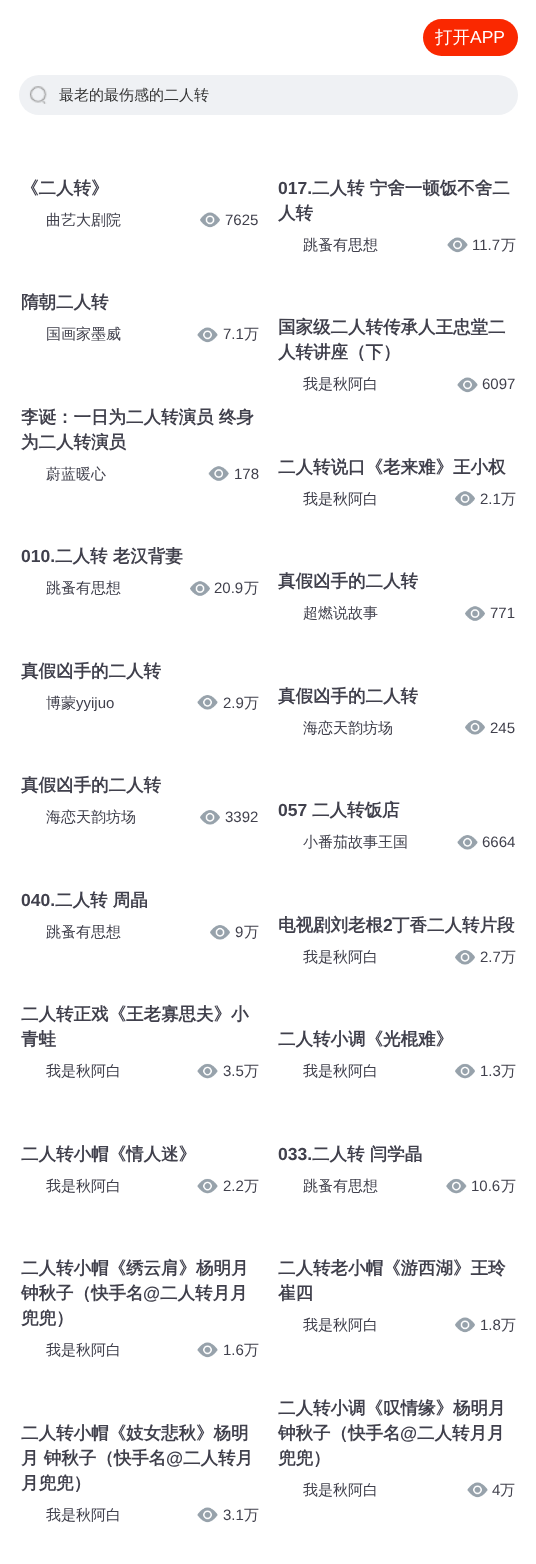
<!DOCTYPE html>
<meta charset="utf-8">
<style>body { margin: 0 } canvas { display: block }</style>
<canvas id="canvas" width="536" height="1564"></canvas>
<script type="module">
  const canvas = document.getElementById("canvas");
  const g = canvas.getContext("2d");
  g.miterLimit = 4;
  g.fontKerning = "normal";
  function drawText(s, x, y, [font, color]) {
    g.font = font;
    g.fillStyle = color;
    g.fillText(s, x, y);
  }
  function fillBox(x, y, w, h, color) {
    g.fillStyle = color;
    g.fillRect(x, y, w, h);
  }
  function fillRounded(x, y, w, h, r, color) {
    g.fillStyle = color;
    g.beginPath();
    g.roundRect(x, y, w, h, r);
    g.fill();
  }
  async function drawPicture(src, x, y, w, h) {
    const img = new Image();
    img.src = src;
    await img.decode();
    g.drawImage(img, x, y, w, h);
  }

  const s1 = ["500 17.5px WenQuanYi Zen Hei", "#FFFFFF"];
  const s2 = ["17.5px Liberation Sans", "#FFFFFF"];
  const s3 = ["500 15px WenQuanYi Zen Hei", "#333333"];
  const s4 = ["bold 17.5px WenQuanYi Zen Hei", "#40404C"];
  const s5 = ["500 15px WenQuanYi Zen Hei", "#40404C"];
  const s6 = ["15px Liberation Sans", "#40404C"];
  const s7 = ["bold 17.5px Liberation Sans", "#40404C"];

  fillBox(0, 0, 536, 1564, "#FFFFFF");
  fillRounded(423, 19, 95, 37, 18.5, "#FA2800");
  drawText("打开", 435, 43, s1);
  drawText("APP", 470, 43, s2);
  fillRounded(19, 75, 499, 40, 20, "#EFF1F4");
  await drawPicture("pic1.png", 29, 86, 18, 18);
  drawText("最老的最伤感的二人转", 59, 100, s3);
  drawText("《二人转》", 21, 194, s4);
  drawText("曲艺大剧院", 46, 225, s5);
  await drawPicture("pic2.png", 200, 212, 20, 16);
  drawText("7625", 225, 225, s6);
  drawText("隋朝二人转", 21, 308, s4);
  drawText("国画家墨威", 46, 339, s5);
  await drawPicture("pic3.png", 197, 327, 21, 16);
  drawText("7.1", 223, 339, s6);
  drawText("万", 244, 339, s5);
  drawText("李诞：一日为二人转演员 终身", 21, 423, s4);
  drawText("为二人转演员", 21, 448, s4);
  drawText("蔚蓝暖心", 46, 479, s5);
  await drawPicture("pic4.png", 208, 466, 21, 15);
  drawText("178", 234, 479, s6);
  drawText("010.", 21, 562, s7);
  drawText("二人转 老汉背妻", 55, 562, s4);
  drawText("跳蚤有思想", 46, 593, s5);
  await drawPicture("pic5.png", 190, 581, 20, 15);
  drawText("20.9", 214, 593, s6);
  drawText("万", 244, 593, s5);
  drawText("真假凶手的二人转", 21, 677, s4);
  drawText("博蒙", 46, 708, s5);
  drawText("yyijuo", 76, 708, s6);
  await drawPicture("pic6.png", 197, 695, 21, 15);
  drawText("2.9", 223, 708, s6);
  drawText("万", 244, 708, s5);
  drawText("真假凶手的二人转", 21, 791, s4);
  drawText("海恋天韵坊场", 46, 822, s5);
  await drawPicture("pic7.png", 200, 810, 20, 15);
  drawText("3392", 225, 822, s6);
  drawText("040.", 21, 906, s7);
  drawText("二人转 周晶", 55, 906, s4);
  drawText("跳蚤有思想", 46, 937, s5);
  await drawPicture("pic7.png", 210, 925, 20, 15);
  drawText("9", 235, 937, s6);
  drawText("万", 244, 937, s5);
  drawText("二人转正戏《王老寡思夫》小", 21, 1020, s4);
  drawText("青蛙", 21, 1045, s4);
  drawText("我是秋阿白", 46, 1076, s5);
  await drawPicture("pic8.png", 197, 1063, 21, 16);
  drawText("3.5", 223, 1076, s6);
  drawText("万", 244, 1076, s5);
  drawText("二人转小帽《情人迷》", 21, 1160, s4);
  drawText("我是秋阿白", 46, 1191, s5);
  await drawPicture("pic8.png", 197, 1178, 21, 16);
  drawText("2.2", 223, 1191, s6);
  drawText("万", 244, 1191, s5);
  drawText("二人转小帽《绣云肩》杨明月", 21, 1274, s4);
  drawText("钟秋子（快手名", 21, 1299, s4);
  drawText("@", 143, 1299, s7);
  drawText("二人转月月", 160, 1299, s4);
  drawText("兜兜）", 21, 1324, s4);
  drawText("我是秋阿白", 46, 1355, s5);
  await drawPicture("pic3.png", 197, 1342, 21, 16);
  drawText("1.6", 223, 1355, s6);
  drawText("万", 244, 1355, s5);
  drawText("二人转小帽《妓女悲秋》杨明", 21, 1439, s4);
  drawText("月 钟秋子（快手名", 21, 1464, s4);
  drawText("@", 166, 1464, s7);
  drawText("二人转月", 183, 1464, s4);
  drawText("月兜兜）", 21, 1489, s4);
  drawText("我是秋阿白", 46, 1520, s5);
  await drawPicture("pic3.png", 197, 1507, 21, 16);
  drawText("3.1", 223, 1520, s6);
  drawText("万", 244, 1520, s5);
  drawText("017.", 278, 194, s7);
  drawText("二人转 宁舍一顿饭不舍二", 312, 194, s4);
  drawText("人转", 278, 219, s4);
  drawText("跳蚤有思想", 303, 250, s5);
  await drawPicture("pic3.png", 447, 237, 21, 16);
  drawText("11.7", 472, 250, s6);
  drawText("万", 501, 250, s5);
  drawText("国家级二人转传承人王忠堂二", 278, 333, s4);
  drawText("人转讲座（下）", 278, 358, s4);
  drawText("我是秋阿白", 303, 389, s5);
  await drawPicture("pic3.png", 457, 377, 21, 16);
  drawText("6097", 482, 389, s6);
  drawText("二人转说口《老来难》王小权", 278, 473, s4);
  drawText("我是秋阿白", 303, 504, s5);
  await drawPicture("pic9.png", 455, 491, 20, 15);
  drawText("2.1", 480, 504, s6);
  drawText("万", 501, 504, s5);
  drawText("真假凶手的二人转", 278, 587, s4);
  drawText("超燃说故事", 303, 618, s5);
  await drawPicture("pic9.png", 465, 606, 20, 15);
  drawText("771", 490, 618, s6);
  drawText("真假凶手的二人转", 278, 702, s4);
  drawText("海恋天韵坊场", 303, 733, s5);
  await drawPicture("pic10.png", 465, 720, 20, 15);
  drawText("245", 490, 733, s6);
  drawText("057", 278, 816, s7);
  drawText("二人转饭店", 312, 816, s4);
  drawText("小番茄故事王国", 303, 847, s5);
  await drawPicture("pic6.png", 457, 835, 21, 15);
  drawText("6664", 482, 847, s6);
  drawText("电视剧刘老根", 278, 931, s4);
  drawText("2", 383, 931, s7);
  drawText("丁香二人转片段", 392, 931, s4);
  drawText("我是秋阿白", 303, 962, s5);
  await drawPicture("pic10.png", 455, 950, 20, 15);
  drawText("2.7", 480, 962, s6);
  drawText("万", 501, 962, s5);
  drawText("二人转小调《光棍难》", 278, 1045, s4);
  drawText("我是秋阿白", 303, 1076, s5);
  await drawPicture("pic11.png", 455, 1063, 20, 16);
  drawText("1.3", 480, 1076, s6);
  drawText("万", 501, 1076, s5);
  drawText("033.", 278, 1160, s7);
  drawText("二人转 闫学晶", 312, 1160, s4);
  drawText("跳蚤有思想", 303, 1191, s5);
  await drawPicture("pic12.png", 446, 1178, 21, 16);
  drawText("10.6", 471, 1191, s6);
  drawText("万", 501, 1191, s5);
  drawText("二人转老小帽《游西湖》王玲", 278, 1274, s4);
  drawText("崔四", 278, 1299, s4);
  drawText("我是秋阿白", 303, 1330, s5);
  await drawPicture("pic13.png", 455, 1317, 20, 16);
  drawText("1.8", 480, 1330, s6);
  drawText("万", 501, 1330, s5);
  drawText("二人转小调《叹情缘》杨明月", 278, 1414, s4);
  drawText("钟秋子（快手名", 278, 1439, s4);
  drawText("@", 400, 1439, s7);
  drawText("二人转月月", 417, 1439, s4);
  drawText("兜兜）", 278, 1464, s4);
  drawText("我是秋阿白", 303, 1495, s5);
  await drawPicture("pic3.png", 467, 1482, 21, 16);
  drawText("4", 492, 1495, s6);
  drawText("万", 500, 1495, s5);
</script>
